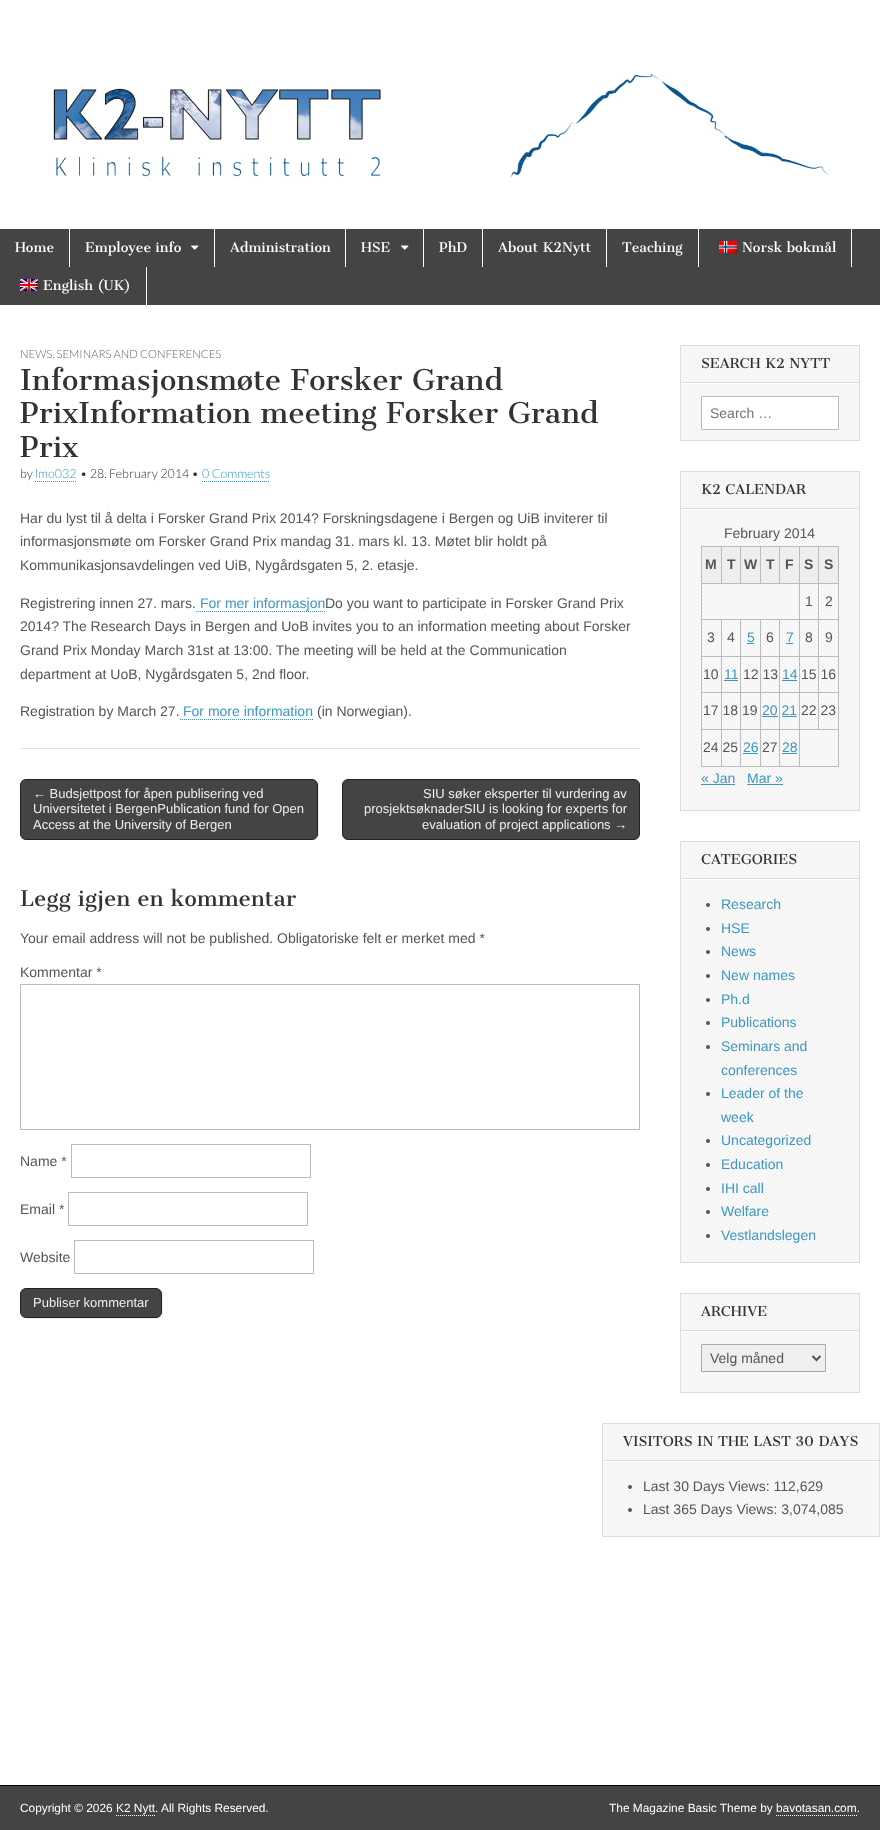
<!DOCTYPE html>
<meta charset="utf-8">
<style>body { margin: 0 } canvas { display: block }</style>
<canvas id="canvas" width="880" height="1830"></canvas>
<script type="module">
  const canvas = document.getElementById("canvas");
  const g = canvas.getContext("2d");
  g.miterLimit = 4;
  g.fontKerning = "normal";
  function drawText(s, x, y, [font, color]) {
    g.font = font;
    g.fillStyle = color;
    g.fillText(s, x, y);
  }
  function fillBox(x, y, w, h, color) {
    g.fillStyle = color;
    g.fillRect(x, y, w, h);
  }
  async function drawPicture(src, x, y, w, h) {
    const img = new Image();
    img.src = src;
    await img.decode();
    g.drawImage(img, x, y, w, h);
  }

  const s1 = ["13px Cantata One", "#FFFFFF"];
  const s2 = ["300 11.25px Lato", "#666666"];
  const s3 = ["28px Cantata One", "#333333"];
  const s4 = ["300 12.5px Lato", "#333333"];
  const s5 = ["300 12.5px Lato", "#3D97C2"];
  const s6 = ["14px Liberation Sans", "#555555"];
  const s7 = ["14px Liberation Sans", "#3D97C2"];
  const s8 = ["13px Liberation Sans", "#EEEEEE"];
  const s9 = ["21px Cantata One", "#333333"];
  const s10 = ["13.25px Cantata One", "#333333"];
  const s11 = ["14px Liberation Sans", "#757575"];
  const s12 = ["bold 14px Liberation Sans", "#555555"];
  const s13 = ["11.9px Liberation Sans", "#FFFFFF"];

  fillBox(0, 0, 880, 1830, "#FFFFFF");
  await drawPicture("pic1.png", 53, 73, 776, 104);
  fillBox(0, 229, 880, 76, "#444444");
  fillBox(69, 229, 1, 38, "#FFFFFF");
  drawText("Home", 15, 252, s1);
  fillBox(214, 229, 1, 38, "#FFFFFF");
  drawText("Employee info", 85, 252, s1);
  await drawPicture("pic2.png", 191, 245, 8, 5);
  fillBox(345, 229, 1, 38, "#FFFFFF");
  drawText("Administration", 230, 252, s1);
  fillBox(423, 229, 1, 38, "#FFFFFF");
  drawText("HSE", 361, 252, s1);
  await drawPicture("pic2.png", 401, 245, 8, 5);
  fillBox(482, 229, 1, 38, "#FFFFFF");
  drawText("PhD", 439, 252, s1);
  fillBox(606, 229, 1, 38, "#FFFFFF");
  drawText("About K2Nytt", 498, 252, s1);
  fillBox(698, 229, 1, 38, "#FFFFFF");
  drawText("Teaching", 622, 252, s1);
  fillBox(851, 229, 1, 38, "#FFFFFF");
  await drawPicture("pic3.png", 719, 241, 18, 12);
  drawText("Norsk bokmål", 742, 252, s1);
  fillBox(146, 267, 1, 38, "#FFFFFF");
  await drawPicture("pic4.png", 20, 279, 18, 12);
  drawText("English (UK)", 43, 290, s1);
  fillBox(20, 748, 620, 1, "#E2E2E2");
  drawText("NEWS, SEMINARS AND CONFERENCES", 20, 358, s2);
  drawText("Informasjonsmøte Forsker Grand", 20, 390, s3);
  drawText("PrixInformation meeting Forsker Grand", 20, 423, s3);
  drawText("Prix", 20, 457, s3);
  drawText("by", 20, 478, s4);
  drawText("lmo032", 35, 478, s5);
  g.beginPath();
  g.moveTo(35, 481.5);
  g.lineTo(77, 481.5);
  g.strokeStyle = "#3D97C2";
  g.setLineDash([1, 1]);
  g.stroke();
  drawText("• 28. February 2014 •", 80, 478, s4);
  drawText("0 Comments", 202, 478, s5);
  g.beginPath();
  g.moveTo(202, 481.5);
  g.lineTo(270, 481.5);
  g.stroke();
  drawText("Har du lyst til å delta i Forsker Grand Prix 2014? Forskningsdagene i Bergen og UiB inviterer til", 20, 523, s6);
  drawText("informasjonsmøte om Forsker Grand Prix mandag 31. mars kl. 13. Møtet blir holdt på", 20, 546, s6);
  drawText("Kommunikasjonsavdelingen ved UiB, Nygårdsgaten 5, 2. etasje.", 20, 570, s6);
  drawText("Registrering innen 27. mars.", 20, 608, s6);
  drawText("For mer informasjon", 200, 608, s7);
  g.beginPath();
  g.moveTo(196, 611.5);
  g.lineTo(325, 611.5);
  g.stroke();
  drawText("Do you want to participate in Forsker Grand Prix", 325, 608, s6);
  drawText("2014? The Research Days in Bergen and UoB invites you to an information meeting about Forsker", 20, 631, s6);
  drawText("Grand Prix Monday March 31st at 13:00. The meeting will be held at the Communication", 20, 655, s6);
  drawText("department at UoB, Nygårdsgaten 5, 2nd floor.", 20, 679, s6);
  drawText("Registration by March 27.", 20, 716, s6);
  drawText("For more information", 183, 716, s7);
  g.beginPath();
  g.moveTo(180, 719.5);
  g.lineTo(313, 719.5);
  g.stroke();
  drawText("(in Norwegian).", 317, 716, s6);
  g.save();
  g.beginPath();
  g.rect(20, 779, 620, 61);
  g.clip();
  g.fillStyle = "#EEEEEE";
  g.beginPath();
  g.moveTo(22, 839);
  g.bezierCurveTo(23, 840, 25, 841, 27, 841);
  g.lineTo(313, 841);
  g.bezierCurveTo(316, 841, 319, 838, 319, 835);
  g.lineTo(319, 786);
  g.bezierCurveTo(319, 784, 318, 782, 317, 781);
  g.bezierCurveTo(318, 782, 318, 784, 318, 785);
  g.lineTo(318, 834);
  g.bezierCurveTo(318, 837, 315, 840, 312, 840);
  g.lineTo(26, 840);
  g.bezierCurveTo(25, 840, 23, 840, 22, 839);
  g.closePath();
  g.fill();
  g.restore();
  g.fillStyle = "#444444";
  g.beginPath();
  g.roundRect(20.5, 779.5, 297, 60, 5.5);
  g.fill();
  g.strokeStyle = "#222222";
  g.setLineDash([]);
  g.stroke();
  drawText("← Budsjettpost for åpen publisering ved", 33, 798, s8);
  drawText("Universitetet i BergenPublication fund for Open", 33, 813, s8);
  drawText("Access at the University of Bergen", 33, 829, s8);
  g.save();
  g.beginPath();
  g.rect(20, 779, 620, 61);
  g.clip();
  g.beginPath();
  g.moveTo(344, 839);
  g.bezierCurveTo(345, 840, 347, 841, 349, 841);
  g.lineTo(635, 841);
  g.bezierCurveTo(638, 841, 641, 838, 641, 835);
  g.lineTo(641, 786);
  g.bezierCurveTo(641, 784, 640, 782, 639, 781);
  g.bezierCurveTo(640, 782, 640, 784, 640, 785);
  g.lineTo(640, 834);
  g.bezierCurveTo(640, 837, 637, 840, 634, 840);
  g.lineTo(348, 840);
  g.bezierCurveTo(347, 840, 345, 840, 344, 839);
  g.closePath();
  g.fill();
  g.restore();
  g.fillStyle = "#444444";
  g.beginPath();
  g.roundRect(342.5, 779.5, 297, 60, 5.5);
  g.fill();
  g.stroke();
  drawText("SIU søker eksperter til vurdering av", 423, 798, s8);
  drawText("prosjektsøknaderSIU is looking for experts for", 364, 813, s8);
  drawText("evaluation of project applications →", 422, 829, s8);
  drawText("Legg igjen en kommentar", 20, 906, s9);
  drawText("Your email address will not be published. Obligatoriske felt er merket med *", 20, 943, s6);
  drawText("Kommentar *", 20, 977, s6);
  g.strokeStyle = "#BBBBBB";
  g.strokeRect(20.5, 984.5, 619, 145);
  drawText("Name *", 20, 1166, s6);
  g.strokeRect(71.5, 1144.5, 239, 33);
  drawText("Email *", 20, 1214, s6);
  g.strokeRect(68.5, 1192.5, 239, 33);
  drawText("Website", 20, 1262, s6);
  g.strokeRect(74.5, 1240.5, 239, 33);
  g.fillStyle = "#EEEEEE";
  g.beginPath();
  g.moveTo(22, 1317);
  g.bezierCurveTo(23, 1318, 25, 1319, 27, 1319);
  g.lineTo(157, 1319);
  g.bezierCurveTo(160, 1319, 163, 1316, 163, 1313);
  g.lineTo(163, 1295);
  g.bezierCurveTo(163, 1293, 162, 1291, 161, 1290);
  g.bezierCurveTo(162, 1291, 162, 1293, 162, 1294);
  g.lineTo(162, 1312);
  g.bezierCurveTo(162, 1315, 159, 1318, 156, 1318);
  g.lineTo(26, 1318);
  g.bezierCurveTo(25, 1318, 23, 1318, 22, 1317);
  g.closePath();
  g.fill();
  g.fillStyle = "#444444";
  g.beginPath();
  g.roundRect(20.5, 1288.5, 141, 29, 5.5);
  g.fill();
  g.strokeStyle = "#222222";
  g.stroke();
  drawText("Publiser kommentar", 33, 1307, s8);
  await drawPicture("pic5.png", 681, 346, 178, 94);
  g.strokeStyle = "#DDDDDD";
  g.strokeRect(680.5, 345.5, 179, 95);
  fillBox(681, 383, 178, 1, "#FFFFFF");
  fillBox(681, 382, 178, 1, "#DDDDDD");
  drawText("SEARCH K2 NYTT", 701, 368, s10);
  g.fillStyle = "#FFFFFF";
  g.beginPath();
  g.rect(701.5, 396.5, 137, 33);
  g.fill();
  g.strokeStyle = "#BBBBBB";
  g.stroke();
  drawText("Search …", 710, 418, s11);
  await drawPicture("pic6.png", 681, 472, 178, 338);
  g.strokeStyle = "#DDDDDD";
  g.strokeRect(680.5, 471.5, 179, 339);
  fillBox(681, 509, 178, 1, "#FFFFFF");
  fillBox(681, 508, 178, 1, "#DDDDDD");
  drawText("K2 CALENDAR", 701, 494, s10);
  drawText("February 2014", 724, 538, s6);
  fillBox(702, 547, 19, 36, "#EEEEEE");
  fillBox(818, 546, 21, 1, "#BBBBBB");
  fillBox(818, 583, 21, 1, "#BBBBBB");
  fillBox(818, 619, 21, 1, "#BBBBBB");
  fillBox(818, 656, 21, 1, "#BBBBBB");
  fillBox(818, 692, 21, 1, "#BBBBBB");
  fillBox(799, 729, 40, 1, "#BBBBBB");
  fillBox(818, 692, 1, 38, "#BBBBBB");
  fillBox(799, 692, 20, 1, "#BBBBBB");
  fillBox(818, 656, 1, 37, "#BBBBBB");
  fillBox(799, 656, 20, 1, "#BBBBBB");
  fillBox(818, 619, 1, 38, "#BBBBBB");
  fillBox(799, 619, 20, 1, "#BBBBBB");
  fillBox(818, 583, 1, 37, "#BBBBBB");
  fillBox(799, 583, 20, 1, "#BBBBBB");
  fillBox(818, 546, 1, 38, "#BBBBBB");
  fillBox(799, 546, 20, 1, "#BBBBBB");
  fillBox(838, 729, 1, 38, "#BBBBBB");
  fillBox(799, 766, 40, 1, "#BBBBBB");
  fillBox(799, 729, 1, 38, "#BBBBBB");
  fillBox(779, 729, 21, 1, "#BBBBBB");
  fillBox(799, 692, 1, 38, "#BBBBBB");
  fillBox(779, 692, 21, 1, "#BBBBBB");
  fillBox(799, 656, 1, 37, "#BBBBBB");
  fillBox(779, 656, 21, 1, "#BBBBBB");
  fillBox(799, 619, 1, 38, "#BBBBBB");
  fillBox(779, 619, 21, 1, "#BBBBBB");
  fillBox(799, 583, 1, 37, "#BBBBBB");
  fillBox(701, 583, 99, 1, "#BBBBBB");
  fillBox(799, 546, 1, 38, "#BBBBBB");
  fillBox(779, 546, 21, 1, "#BBBBBB");
  fillBox(779, 546, 1, 38, "#BBBBBB");
  fillBox(760, 546, 20, 1, "#BBBBBB");
  fillBox(760, 546, 1, 38, "#BBBBBB");
  fillBox(740, 546, 21, 1, "#BBBBBB");
  fillBox(740, 546, 1, 38, "#BBBBBB");
  fillBox(721, 546, 20, 1, "#BBBBBB");
  fillBox(721, 546, 1, 38, "#BBBBBB");
  fillBox(701, 546, 21, 1, "#BBBBBB");
  fillBox(779, 766, 21, 1, "#BBBBBB");
  fillBox(779, 729, 1, 38, "#BBBBBB");
  fillBox(760, 729, 20, 1, "#BBBBBB");
  fillBox(779, 692, 1, 38, "#BBBBBB");
  fillBox(760, 692, 20, 1, "#BBBBBB");
  fillBox(779, 656, 1, 37, "#BBBBBB");
  fillBox(760, 656, 20, 1, "#BBBBBB");
  fillBox(779, 619, 1, 38, "#BBBBBB");
  fillBox(760, 619, 20, 1, "#BBBBBB");
  fillBox(760, 766, 20, 1, "#BBBBBB");
  fillBox(760, 729, 1, 38, "#BBBBBB");
  fillBox(740, 729, 21, 1, "#BBBBBB");
  fillBox(760, 692, 1, 38, "#BBBBBB");
  fillBox(740, 692, 21, 1, "#BBBBBB");
  fillBox(760, 656, 1, 37, "#BBBBBB");
  fillBox(740, 656, 21, 1, "#BBBBBB");
  fillBox(760, 619, 1, 38, "#BBBBBB");
  fillBox(740, 619, 21, 1, "#BBBBBB");
  fillBox(740, 766, 21, 1, "#BBBBBB");
  fillBox(740, 729, 1, 38, "#BBBBBB");
  fillBox(721, 729, 20, 1, "#BBBBBB");
  fillBox(740, 692, 1, 38, "#BBBBBB");
  fillBox(721, 692, 20, 1, "#BBBBBB");
  fillBox(740, 656, 1, 37, "#BBBBBB");
  fillBox(721, 656, 20, 1, "#BBBBBB");
  fillBox(740, 619, 1, 38, "#BBBBBB");
  fillBox(721, 619, 20, 1, "#BBBBBB");
  fillBox(721, 766, 20, 1, "#BBBBBB");
  fillBox(721, 729, 1, 38, "#BBBBBB");
  fillBox(701, 729, 21, 1, "#BBBBBB");
  fillBox(721, 692, 1, 38, "#BBBBBB");
  fillBox(701, 692, 21, 1, "#BBBBBB");
  fillBox(721, 656, 1, 37, "#BBBBBB");
  fillBox(701, 656, 21, 1, "#BBBBBB");
  fillBox(721, 619, 1, 38, "#BBBBBB");
  fillBox(701, 619, 21, 1, "#BBBBBB");
  fillBox(701, 766, 21, 1, "#BBBBBB");
  fillBox(701, 729, 1, 38, "#BBBBBB");
  fillBox(701, 692, 1, 38, "#BBBBBB");
  fillBox(701, 656, 1, 37, "#BBBBBB");
  fillBox(701, 619, 1, 38, "#BBBBBB");
  fillBox(701, 583, 1, 37, "#BBBBBB");
  fillBox(701, 546, 1, 38, "#BBBBBB");
  drawText("M", 705, 569, s12);
  fillBox(722, 547, 18, 36, "#EEEEEE");
  drawText("T", 727, 569, s12);
  fillBox(741, 547, 19, 36, "#EEEEEE");
  drawText("W", 744, 569, s12);
  fillBox(761, 547, 18, 36, "#EEEEEE");
  drawText("T", 766, 569, s12);
  fillBox(780, 547, 19, 36, "#EEEEEE");
  drawText("F", 785, 569, s12);
  fillBox(800, 547, 18, 36, "#EEEEEE");
  drawText("S", 804, 569, s12);
  fillBox(819, 547, 19, 36, "#EEEEEE");
  fillBox(838, 692, 1, 38, "#BBBBBB");
  fillBox(838, 656, 1, 37, "#BBBBBB");
  fillBox(838, 619, 1, 38, "#BBBBBB");
  fillBox(838, 583, 1, 37, "#BBBBBB");
  fillBox(838, 546, 1, 38, "#BBBBBB");
  drawText("S", 824, 569, s12);
  drawText("1", 805, 606, s6);
  drawText("2", 825, 606, s6);
  drawText("3", 707, 642, s6);
  drawText("4", 727, 642, s6);
  drawText("5", 747, 642, s7);
  fillBox(747, 643, 7, 1, "#3D97C2");
  drawText("6", 766, 642, s6);
  drawText("7", 786, 642, s7);
  fillBox(786, 643, 7, 1, "#3D97C2");
  drawText("8", 805, 642, s6);
  drawText("9", 825, 642, s6);
  drawText("10", 703, 679, s6);
  drawText("11", 724, 679, s7);
  fillBox(724, 680, 14, 1, "#3D97C2");
  drawText("12 13", 743, 679, s6);
  drawText("14", 782, 679, s7);
  fillBox(782, 680, 15, 1, "#3D97C2");
  drawText("15 16", 801, 679, s6);
  fillBox(782, 716, 15, 1, "#3D97C2");
  drawText("17 18 19", 703, 715, s6);
  drawText("20 21", 762, 715, s7);
  fillBox(762, 716, 16, 1, "#3D97C2");
  drawText("22 23", 801, 715, s6);
  drawText("24 25", 703, 752, s6);
  drawText("26", 743, 752, s7);
  fillBox(743, 753, 15, 1, "#3D97C2");
  drawText("27", 762, 752, s6);
  drawText("28", 782, 752, s7);
  fillBox(782, 753, 15, 1, "#3D97C2");
  drawText("« Jan", 701, 783, s7);
  fillBox(701, 784, 34, 1, "#3D97C2");
  drawText("Mar »", 747, 783, s7);
  fillBox(747, 784, 36, 1, "#3D97C2");
  await drawPicture("pic7.png", 681, 842, 178, 420);
  g.strokeRect(680.5, 841.5, 179, 421);
  fillBox(681, 879, 178, 1, "#FFFFFF");
  fillBox(681, 878, 178, 1, "#DDDDDD");
  drawText("CATEGORIES", 701, 864, s10);
  g.fillStyle = "#555555";
  g.beginPath();
  g.arc(708, 905, 2, 0, Math.PI * 2);
  g.fill();
  drawText("Research", 721, 909, s7);
  g.fillStyle = "#555555";
  g.beginPath();
  g.arc(708, 929, 2, 0, Math.PI * 2);
  g.fill();
  drawText("HSE", 721, 933, s7);
  g.fillStyle = "#555555";
  g.beginPath();
  g.arc(708, 952, 2, 0, Math.PI * 2);
  g.fill();
  drawText("News", 721, 956, s7);
  g.fillStyle = "#555555";
  g.beginPath();
  g.arc(708, 976, 2, 0, Math.PI * 2);
  g.fill();
  drawText("New names", 721, 980, s7);
  g.fillStyle = "#555555";
  g.beginPath();
  g.arc(708, 1000, 2, 0, Math.PI * 2);
  g.fill();
  drawText("Ph.d", 721, 1004, s7);
  g.fillStyle = "#555555";
  g.beginPath();
  g.arc(708, 1023, 2, 0, Math.PI * 2);
  g.fill();
  drawText("Publications", 721, 1027, s7);
  g.fillStyle = "#555555";
  g.beginPath();
  g.arc(708, 1047, 2, 0, Math.PI * 2);
  g.fill();
  drawText("Seminars and", 721, 1051, s7);
  drawText("conferences", 721, 1075, s7);
  g.fillStyle = "#555555";
  g.beginPath();
  g.arc(708, 1094, 2, 0, Math.PI * 2);
  g.fill();
  drawText("Leader of the", 721, 1098, s7);
  drawText("week", 721, 1122, s7);
  g.fillStyle = "#555555";
  g.beginPath();
  g.arc(708, 1141, 2, 0, Math.PI * 2);
  g.fill();
  drawText("Uncategorized", 721, 1145, s7);
  g.fillStyle = "#555555";
  g.beginPath();
  g.arc(708, 1165, 2, 0, Math.PI * 2);
  g.fill();
  drawText("Education", 721, 1169, s7);
  g.fillStyle = "#555555";
  g.beginPath();
  g.arc(708, 1189, 2, 0, Math.PI * 2);
  g.fill();
  drawText("IHI call", 721, 1193, s7);
  g.fillStyle = "#555555";
  g.beginPath();
  g.arc(708, 1212, 2, 0, Math.PI * 2);
  g.fill();
  drawText("Welfare", 721, 1216, s7);
  g.fillStyle = "#555555";
  g.beginPath();
  g.arc(708, 1236, 2, 0, Math.PI * 2);
  g.fill();
  drawText("Vestlandslegen", 721, 1240, s7);
  await drawPicture("pic8.png", 681, 1294, 178, 98);
  g.strokeRect(680.5, 1293.5, 179, 99);
  fillBox(681, 1331, 178, 1, "#FFFFFF");
  fillBox(681, 1330, 178, 1, "#DDDDDD");
  drawText("ARCHIVE", 701, 1316, s10);
  g.fillStyle = "#EFEFEF";
  g.beginPath();
  g.rect(701.5, 1344.5, 124, 27);
  g.fill();
  g.strokeStyle = "#AAAAAA";
  g.stroke();
  g.beginPath();
  g.moveTo(812.5, 1356);
  g.lineTo(816.5, 1360);
  g.lineTo(820.5, 1356);
  g.strokeStyle = "#555555";
  g.lineWidth = 2;
  g.stroke();
  drawText("Velg måned", 710, 1363, s6);
  await drawPicture("pic9.png", 603, 1424, 276, 112);
  g.strokeStyle = "#DDDDDD";
  g.lineWidth = 1;
  g.strokeRect(602.5, 1423.5, 277, 113);
  fillBox(603, 1461, 276, 1, "#FFFFFF");
  fillBox(603, 1460, 276, 1, "#DDDDDD");
  drawText("VISITORS IN THE LAST 30 DAYS", 623, 1446, s10);
  g.fillStyle = "#555555";
  g.beginPath();
  g.arc(630, 1487, 2, 0, Math.PI * 2);
  g.fill();
  drawText("Last 30 Days Views: 112,629", 643, 1491, s6);
  g.beginPath();
  g.arc(630, 1510, 2, 0, Math.PI * 2);
  g.fill();
  drawText("Last 365 Days Views: 3,074,085", 643, 1514, s6);
  fillBox(0, 1786, 880, 44, "#444444");
  fillBox(0, 1785, 880, 1, "#000000");
  drawText("Copyright © 2026 K2 Nytt. All Rights Reserved.", 20, 1812, s13);
  g.beginPath();
  g.moveTo(116, 1815.5);
  g.lineTo(155, 1815.5);
  g.strokeStyle = "#FFFFFF";
  g.setLineDash([1, 1]);
  g.stroke();
  drawText("The Magazine Basic Theme by bavotasan.com.", 609, 1812, s13);
  g.beginPath();
  g.moveTo(776, 1815.5);
  g.lineTo(857, 1815.5);
  g.stroke();
</script>
